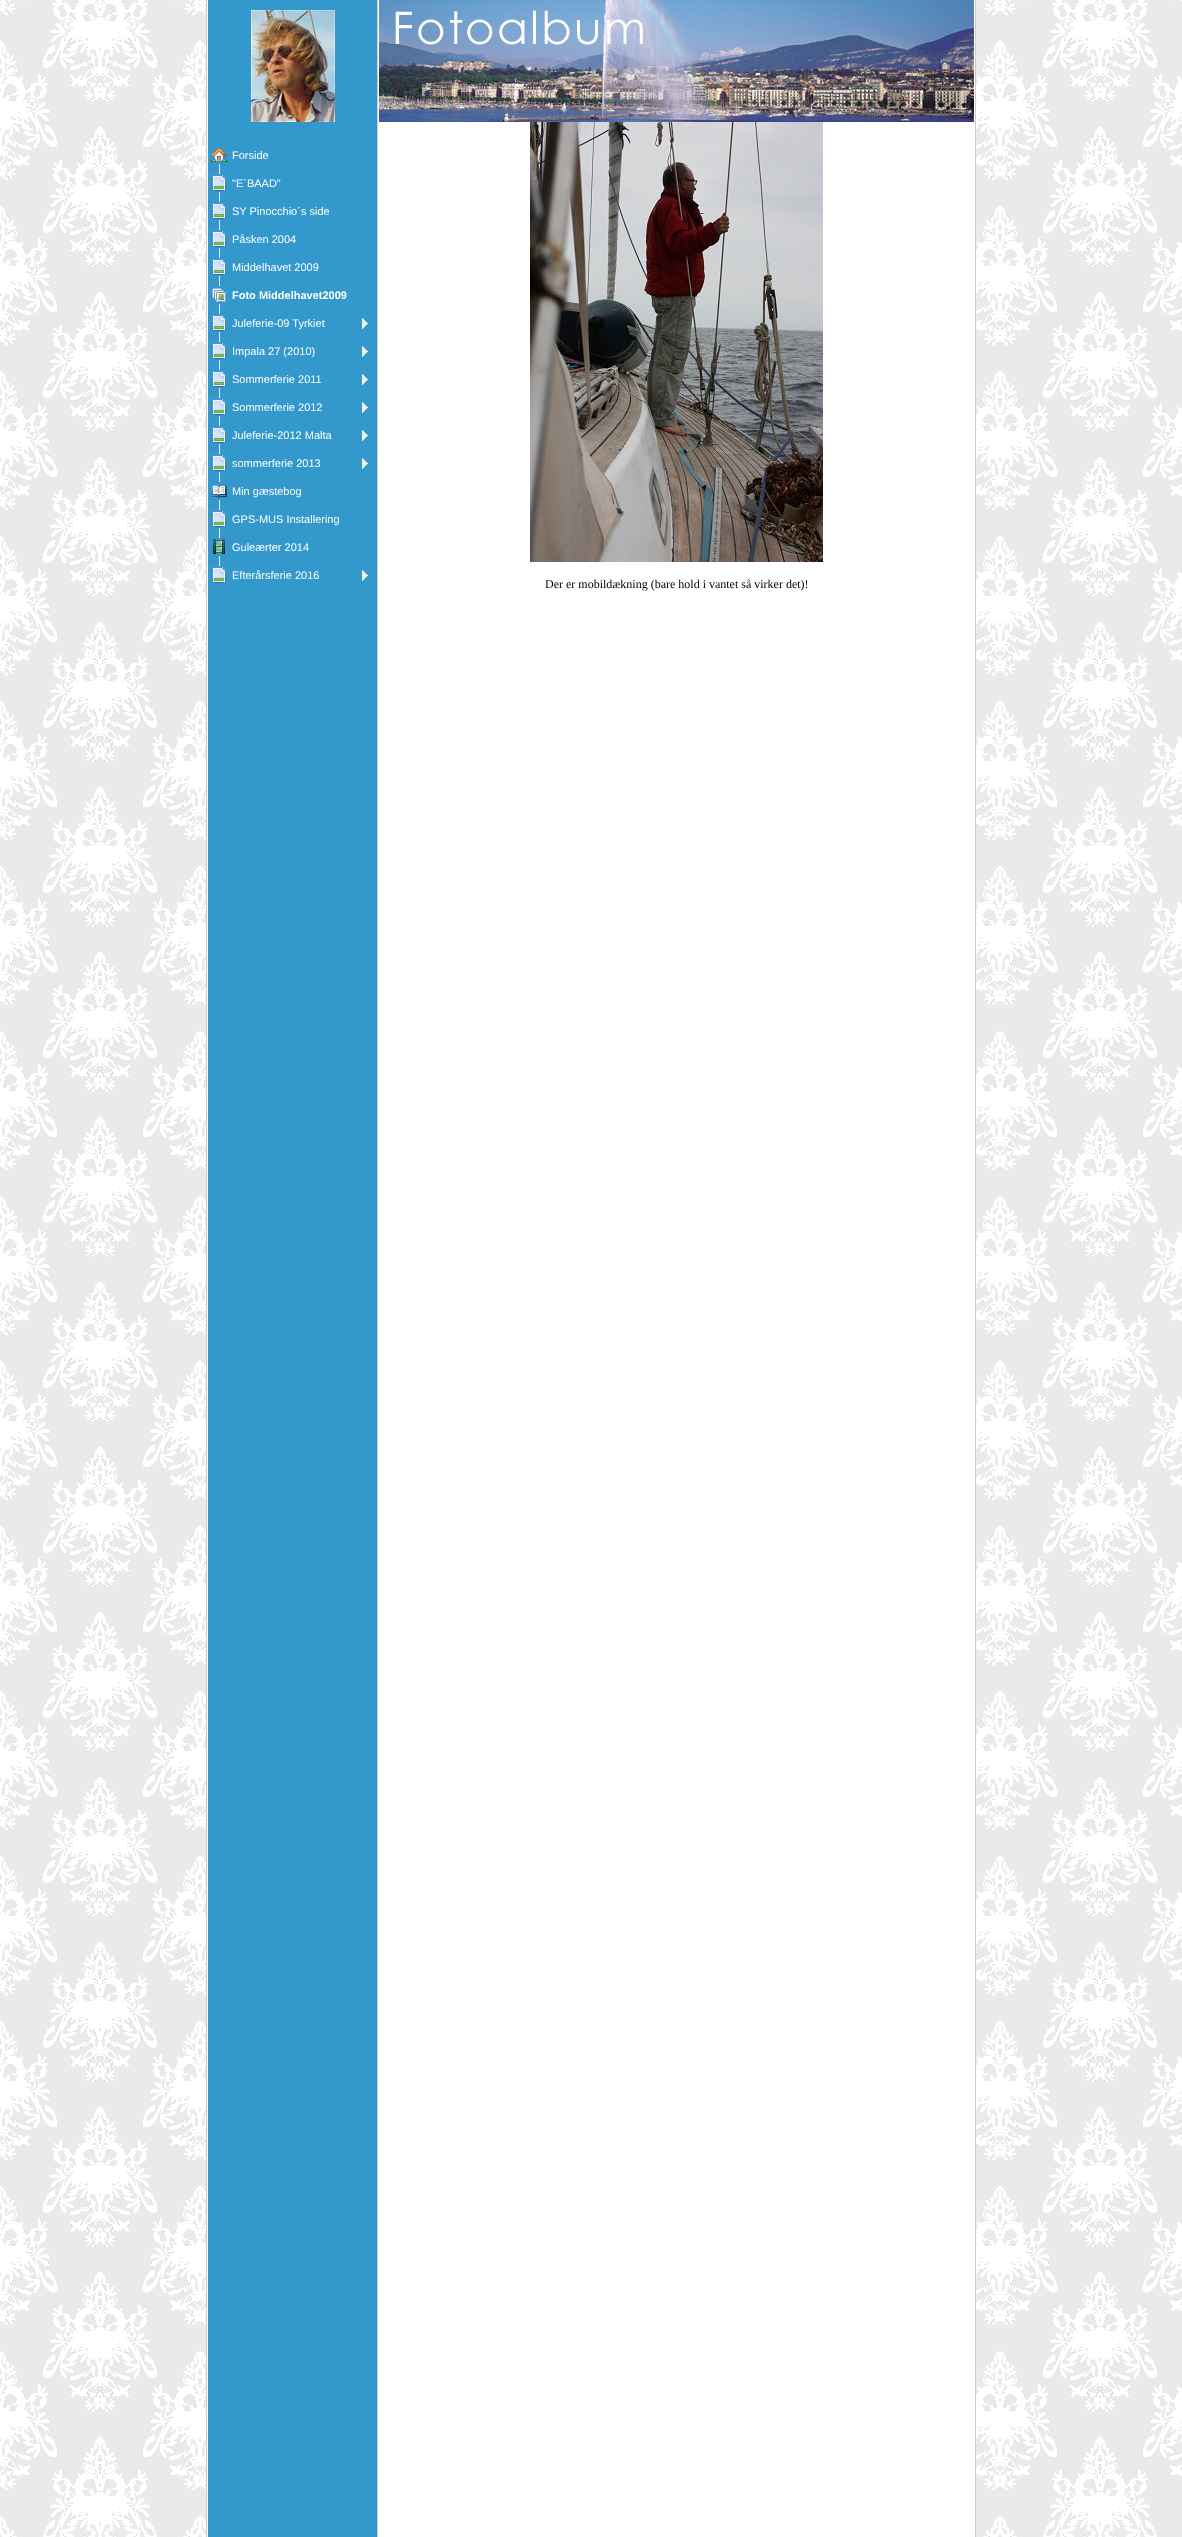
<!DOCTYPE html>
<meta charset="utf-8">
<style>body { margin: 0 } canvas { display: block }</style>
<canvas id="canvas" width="1182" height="2537"></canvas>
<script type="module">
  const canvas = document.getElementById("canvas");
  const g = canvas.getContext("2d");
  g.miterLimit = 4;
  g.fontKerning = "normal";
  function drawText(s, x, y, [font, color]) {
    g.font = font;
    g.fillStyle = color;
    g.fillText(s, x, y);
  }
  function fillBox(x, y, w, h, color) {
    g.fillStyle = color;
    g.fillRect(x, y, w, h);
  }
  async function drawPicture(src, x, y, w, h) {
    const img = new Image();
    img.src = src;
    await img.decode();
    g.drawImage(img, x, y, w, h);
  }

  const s1 = ["11px Liberation Sans", "#FFFFFF"];
  const s2 = ["bold 11px Liberation Sans", "#FFFFFF"];
  const s3 = ["12px Liberation Serif", "#000000"];

  fillBox(0, 0, 1182, 2537, "#FFFFFF");
  await drawPicture("pic1.png", 0, 0, 1182, 2537);
  fillBox(207, 0, 768, 2537, "#FFFFFF");
  fillBox(206, 0, 1, 2537, "#CCCCCC");
  fillBox(208, 0, 169, 2537, "#3399CC");
  await drawPicture("pic2.png", 251, 10, 84, 112);
  fillBox(219, 164, 1, 5, "#EFEFEF");
  await drawPicture("pic3.png", 211, 148, 16, 14);
  drawText("Forside", 232, 159, s1);
  await drawPicture("pic4.png", 219, 169, 1, 28);
  await drawPicture("pic5.png", 212, 175, 14, 16);
  drawText("\"E´BAAD\"", 232, 187, s1);
  await drawPicture("pic4.png", 219, 197, 1, 28);
  await drawPicture("pic5.png", 212, 203, 14, 16);
  drawText("SY Pinocchio´s side", 232, 215, s1);
  await drawPicture("pic4.png", 219, 225, 1, 28);
  await drawPicture("pic5.png", 212, 231, 14, 16);
  drawText("Påsken 2004", 232, 243, s1);
  await drawPicture("pic4.png", 219, 253, 1, 28);
  await drawPicture("pic5.png", 212, 259, 14, 16);
  drawText("Middelhavet 2009", 232, 271, s1);
  await drawPicture("pic4.png", 219, 281, 1, 28);
  await drawPicture("pic6.png", 212, 288, 14, 14);
  drawText("Foto Middelhavet2009", 232, 299, s2);
  await drawPicture("pic4.png", 219, 309, 1, 28);
  await drawPicture("pic5.png", 212, 315, 14, 16);
  await drawPicture("pic7.png", 362, 318, 6, 11);
  drawText("Juleferie-09 Tyrkiet", 232, 327, s1);
  await drawPicture("pic4.png", 219, 337, 1, 28);
  await drawPicture("pic5.png", 212, 343, 14, 16);
  await drawPicture("pic7.png", 362, 346, 6, 11);
  drawText("Impala 27 (2010)", 232, 355, s1);
  await drawPicture("pic4.png", 219, 365, 1, 28);
  await drawPicture("pic5.png", 212, 371, 14, 16);
  await drawPicture("pic7.png", 362, 374, 6, 11);
  drawText("Sommerferie 2011", 232, 383, s1);
  await drawPicture("pic4.png", 219, 393, 1, 28);
  await drawPicture("pic5.png", 212, 399, 14, 16);
  await drawPicture("pic7.png", 362, 402, 6, 11);
  drawText("Sommerferie 2012", 232, 411, s1);
  await drawPicture("pic4.png", 219, 421, 1, 28);
  await drawPicture("pic5.png", 212, 427, 14, 16);
  await drawPicture("pic7.png", 362, 430, 6, 11);
  drawText("Juleferie-2012 Malta", 232, 439, s1);
  await drawPicture("pic4.png", 219, 449, 1, 28);
  await drawPicture("pic5.png", 212, 455, 14, 16);
  await drawPicture("pic7.png", 362, 458, 6, 11);
  drawText("sommerferie 2013", 232, 467, s1);
  await drawPicture("pic4.png", 219, 477, 1, 28);
  await drawPicture("pic8.png", 211, 485, 16, 13);
  drawText("Min gæstebog", 232, 495, s1);
  await drawPicture("pic4.png", 219, 505, 1, 28);
  await drawPicture("pic5.png", 212, 511, 14, 16);
  drawText("GPS-MUS Installering", 232, 523, s1);
  await drawPicture("pic4.png", 219, 533, 1, 28);
  await drawPicture("pic9.png", 213, 539, 12, 15);
  drawText("Guleærter 2014", 232, 551, s1);
  fillBox(219, 561, 1, 5, "#EFEFEF");
  await drawPicture("pic5.png", 212, 567, 14, 16);
  await drawPicture("pic7.png", 362, 570, 6, 11);
  drawText("Efterårsferie 2016", 232, 579, s1);
  fillBox(377, 0, 1, 2537, "#CCCCCC");
  fillBox(975, 0, 1, 2537, "#CCCCCC");
  await drawPicture("pic10.png", 379, 0, 595, 122);
  await drawPicture("pic11.png", 530, 122, 293, 440);
  drawText("Der er mobildækning (bare hold i vantet så virker det)!", 545, 588, s3);
</script>
